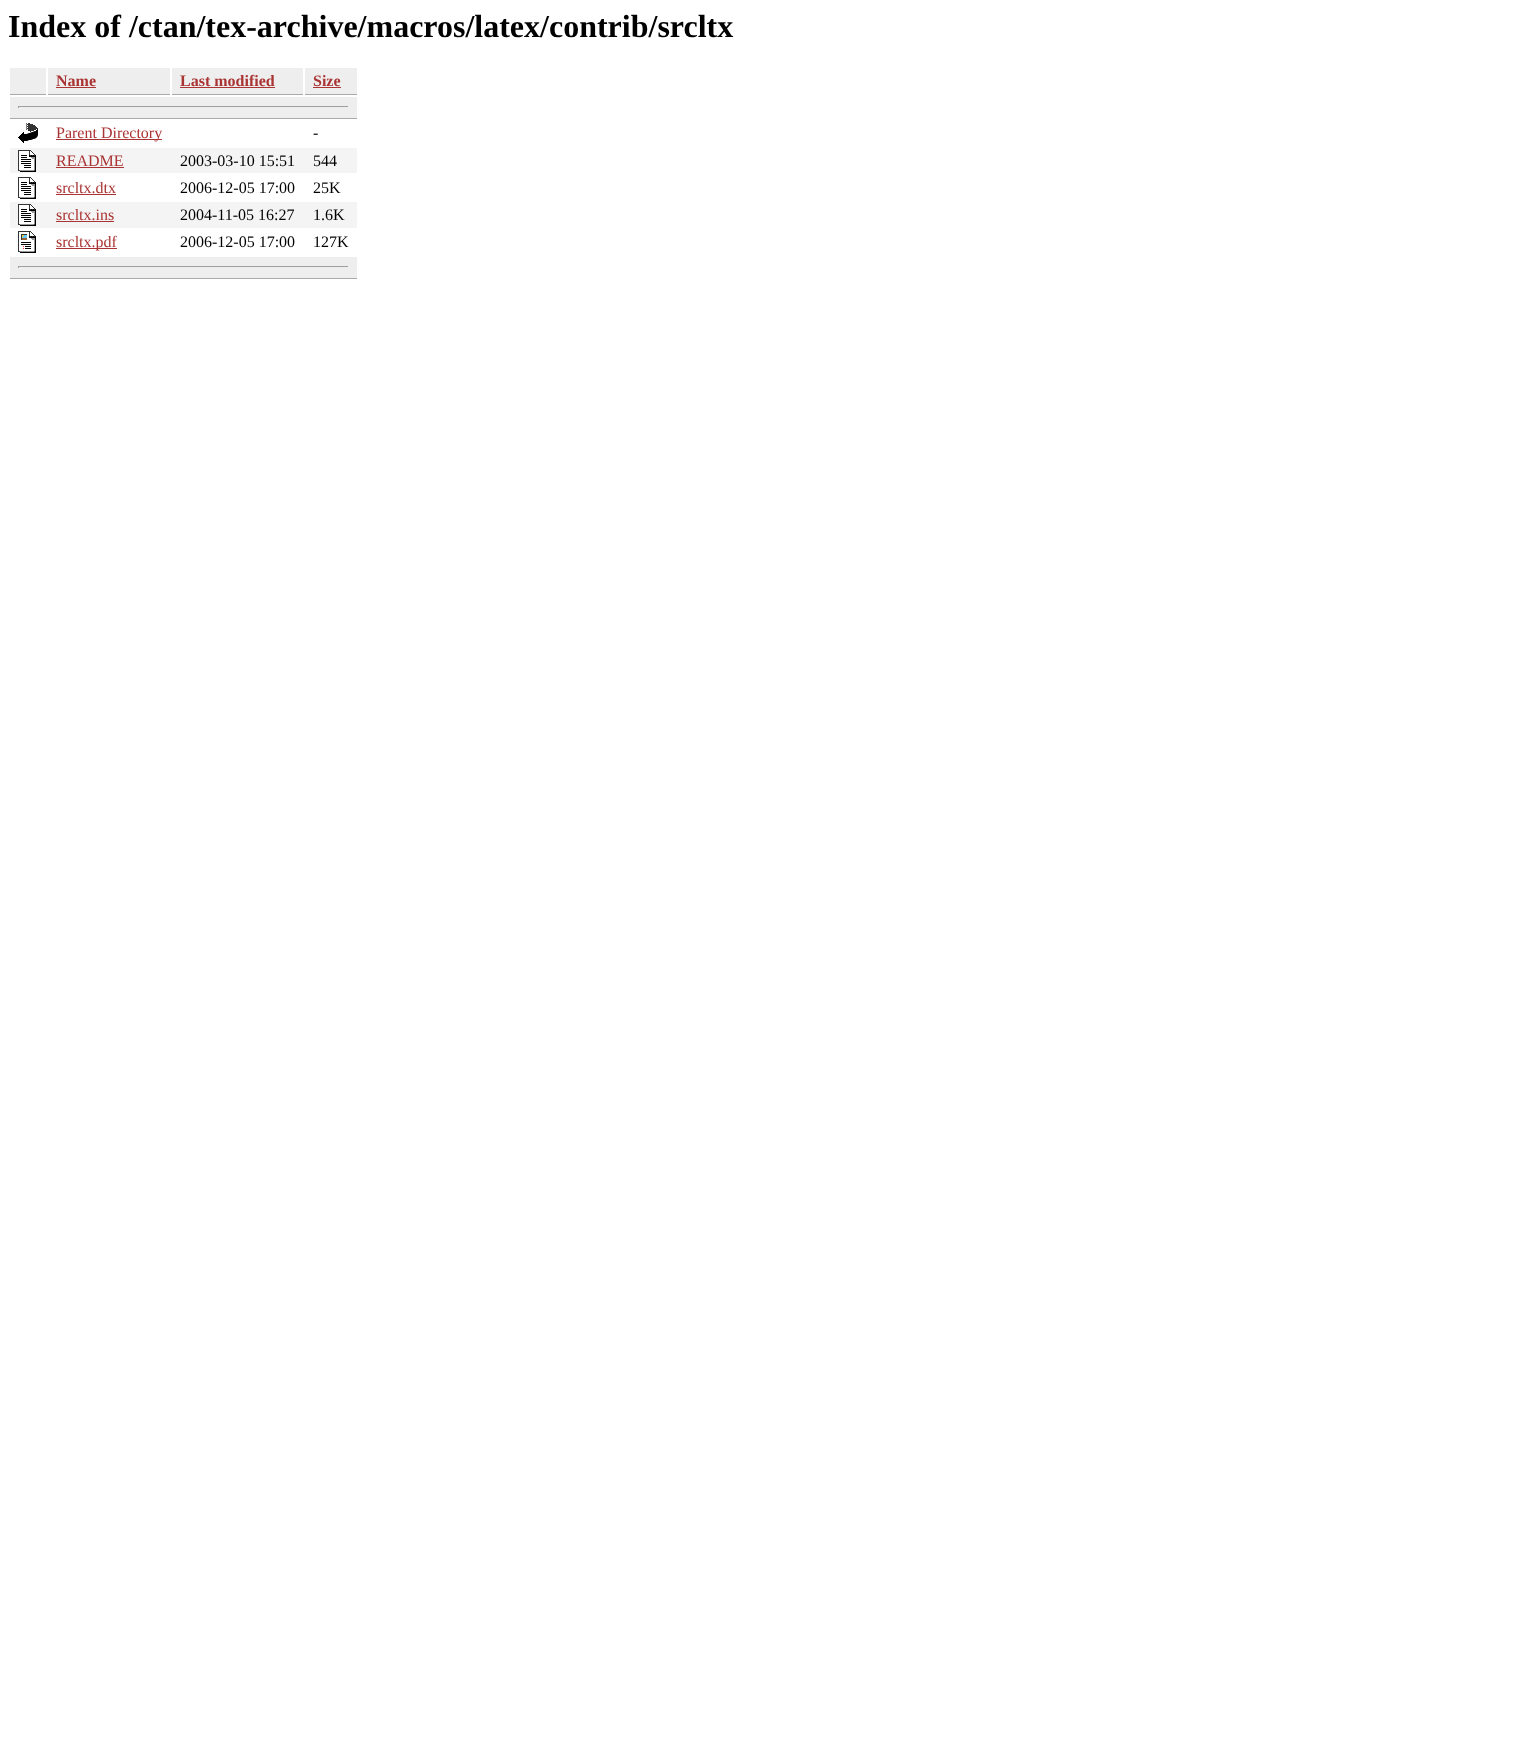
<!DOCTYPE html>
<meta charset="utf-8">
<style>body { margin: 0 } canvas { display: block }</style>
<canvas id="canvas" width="1529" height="1752"></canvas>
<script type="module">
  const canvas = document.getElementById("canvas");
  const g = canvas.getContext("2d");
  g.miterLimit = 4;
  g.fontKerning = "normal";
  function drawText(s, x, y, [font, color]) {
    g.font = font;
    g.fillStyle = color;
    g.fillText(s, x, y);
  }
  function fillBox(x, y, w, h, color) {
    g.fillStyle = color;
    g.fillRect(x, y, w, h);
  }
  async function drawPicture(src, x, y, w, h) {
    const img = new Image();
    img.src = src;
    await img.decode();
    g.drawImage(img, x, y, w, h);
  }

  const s1 = ["bold 32px Liberation Serif", "#000000"];
  const s2 = ["bold 16px Liberation Serif", "#AA3333"];
  const s3 = ["16px Liberation Serif", "#AA3333"];
  const s4 = ["16px Liberation Serif", "#000000"];

  fillBox(0, 0, 1529, 1752, "#FFFFFF");
  drawText("Index of /ctan/tex-archive/macros/latex/contrib/srcltx", 8, 37, s1);
  fillBox(10, 68, 36, 26, "#EEEEEE");
  fillBox(10, 94, 36, 1, "#AAAAAA");
  fillBox(48, 68, 122, 26, "#EEEEEE");
  fillBox(48, 94, 122, 1, "#AAAAAA");
  drawText("Name", 56, 86, s2);
  fillBox(56, 87, 40, 1, "#AA3333");
  fillBox(172, 68, 131, 26, "#EEEEEE");
  fillBox(172, 94, 131, 1, "#AAAAAA");
  drawText("Last modified", 180, 86, s2);
  fillBox(180, 87, 95, 1, "#AA3333");
  fillBox(305, 68, 52, 26, "#EEEEEE");
  fillBox(305, 94, 52, 1, "#AAAAAA");
  drawText("Size", 313, 86, s2);
  fillBox(313, 87, 28, 1, "#AA3333");
  fillBox(10, 97, 347, 21, "#EEEEEE");
  fillBox(10, 118, 347, 1, "#AAAAAA");
  fillBox(18, 106, 331, 1, "#9F9F9F");
  fillBox(348, 106, 1, 2, "#EEEEEE");
  fillBox(18, 106, 1, 2, "#9F9F9F");
  await drawPicture("pic1.png", 18, 123, 20, 20);
  fillBox(56, 139, 106, 1, "#AA3333");
  drawText("Parent Directory", 56, 138, s3);
  drawText("-", 313, 138, s4);
  fillBox(10, 148, 347, 25, "#F4F4F4");
  await drawPicture("pic2.png", 18, 150, 18, 22);
  drawText("README", 56, 166, s3);
  fillBox(56, 167, 68, 1, "#AA3333");
  drawText("2003-03-10 15:51", 180, 166, s4);
  drawText("544", 313, 166, s4);
  await drawPicture("pic3.png", 18, 177, 18, 22);
  drawText("srcltx.dtx", 56, 193, s3);
  fillBox(56, 194, 60, 1, "#AA3333");
  drawText("2006-12-05 17:00", 180, 193, s4);
  drawText("25K", 313, 193, s4);
  fillBox(10, 202, 347, 26, "#F4F4F4");
  await drawPicture("pic2.png", 18, 204, 18, 22);
  drawText("srcltx.ins", 56, 220, s3);
  fillBox(56, 221, 58, 1, "#AA3333");
  drawText("2004-11-05 16:27", 180, 220, s4);
  drawText("1.6K", 313, 220, s4);
  await drawPicture("pic4.png", 18, 231, 18, 22);
  fillBox(56, 248, 61, 1, "#AA3333");
  drawText("srcltx.pdf", 56, 247, s3);
  drawText("2006-12-05 17:00", 180, 247, s4);
  drawText("127K", 313, 247, s4);
  fillBox(10, 257, 347, 21, "#EEEEEE");
  fillBox(10, 278, 347, 1, "#AAAAAA");
  fillBox(18, 266, 331, 1, "#9F9F9F");
  fillBox(348, 266, 1, 2, "#EEEEEE");
  fillBox(18, 266, 1, 2, "#9F9F9F");
</script>
